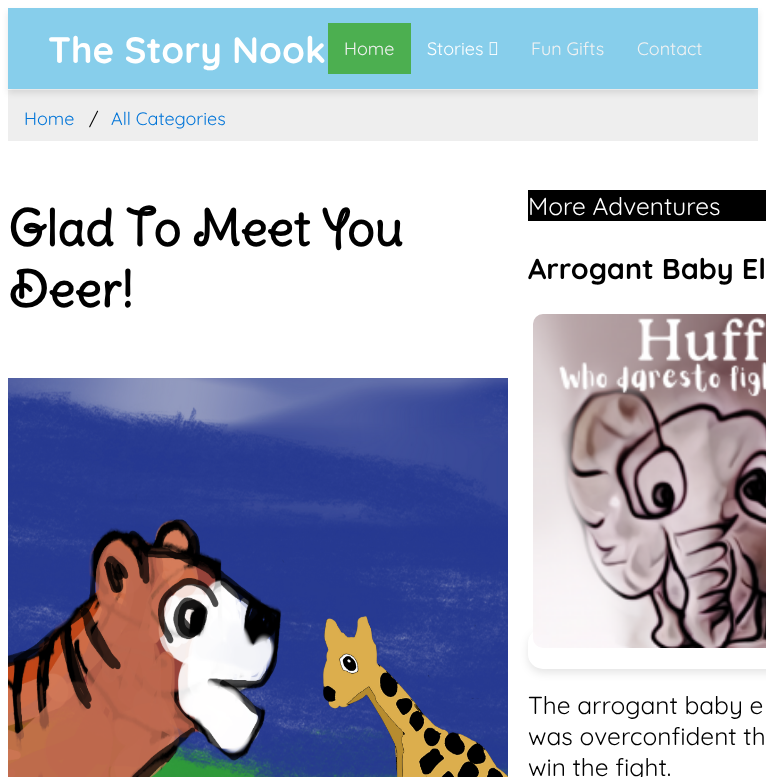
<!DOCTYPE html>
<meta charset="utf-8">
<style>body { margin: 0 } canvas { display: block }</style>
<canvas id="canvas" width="766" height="777"></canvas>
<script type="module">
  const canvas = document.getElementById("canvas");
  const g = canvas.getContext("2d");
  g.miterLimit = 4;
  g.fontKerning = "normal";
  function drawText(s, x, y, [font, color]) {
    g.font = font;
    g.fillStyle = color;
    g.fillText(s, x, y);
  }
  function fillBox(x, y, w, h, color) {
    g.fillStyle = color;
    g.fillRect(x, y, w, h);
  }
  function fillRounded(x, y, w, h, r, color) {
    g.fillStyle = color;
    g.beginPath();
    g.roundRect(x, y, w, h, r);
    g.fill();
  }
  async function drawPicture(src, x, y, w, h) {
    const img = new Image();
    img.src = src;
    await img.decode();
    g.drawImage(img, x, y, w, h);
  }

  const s1 = ["bold 36.75px Quicksand", "#FFFFFF"];
  const s2 = ["18px Quicksand", "#F2F2F2"];
  const s3 = ["18px Quicksand", "#FFFFFF"];
  const s4 = ["18px Quicksand", "#0275D8"];
  const s5 = ["18px Quicksand", "#000000"];
  const s6 = ["bold 49px Delius Swash Caps", "#000000"];
  const s7 = ["24.5px Quicksand", "#FFFFFF"];
  const s8 = ["bold 28.75px Quicksand", "#000000"];
  const s9 = ["24.5px Quicksand", "#000000"];

  fillBox(0, 0, 766, 777, "#FFFFFF");
  fillBox(8, 90, 750, 51, "#EEEEEE");
  g.fillStyle = "rgba(0, 0, 0, 0.1)";
  g.filter = "blur(3px)";
  g.beginPath();
  g.rect(8, 12, 750, 81);
  g.fill();
  g.filter = "none";
  fillBox(8, 8, 750, 81, "#87CEEB");
  drawText("The Story Nook", 48, 63, s1);
  fillBox(328, 23, 83, 51, "#4CAF50");
  drawText("Home", 344, 55, s2);
  drawText("Stories", 427, 55, s3);
  await drawPicture("pic1.png", 489, 42, 9, 13);
  drawText("Fun Gifts", 531, 55, s2);
  drawText("Contact", 637, 55, s2);
  drawText("Home", 24, 125, s4);
  drawText("/", 89, 125, s5);
  drawText("All Categories", 111, 125, s4);
  drawText("Glad To Meet You", 8, 246, s6);
  drawText("Deer!", 8, 307, s6);
  await drawPicture("pic2.png", 8, 378, 500, 399);
  fillBox(528, 190, 238, 31, "#000000");
  drawText("More Adventures", 528, 215, s7);
  drawText("Arrogant Baby El", 528, 279, s8);
  g.fillStyle = "rgba(0, 0, 0, 0.1)";
  g.filter = "blur(4px)";
  g.beginPath();
  g.roundRect(528, 632, 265, 41, 15);
  g.fill();
  g.filter = "none";
  fillRounded(528, 628, 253, 41, 15, "#FFFFFF");
  await drawPicture("pic3.png", 533, 314, 233, 334);
  drawText("The arrogant baby e", 528, 714, s9);
  drawText("was overconfident th", 528, 745, s9);
  drawText("win the fight.", 528, 776, s9);
</script>
